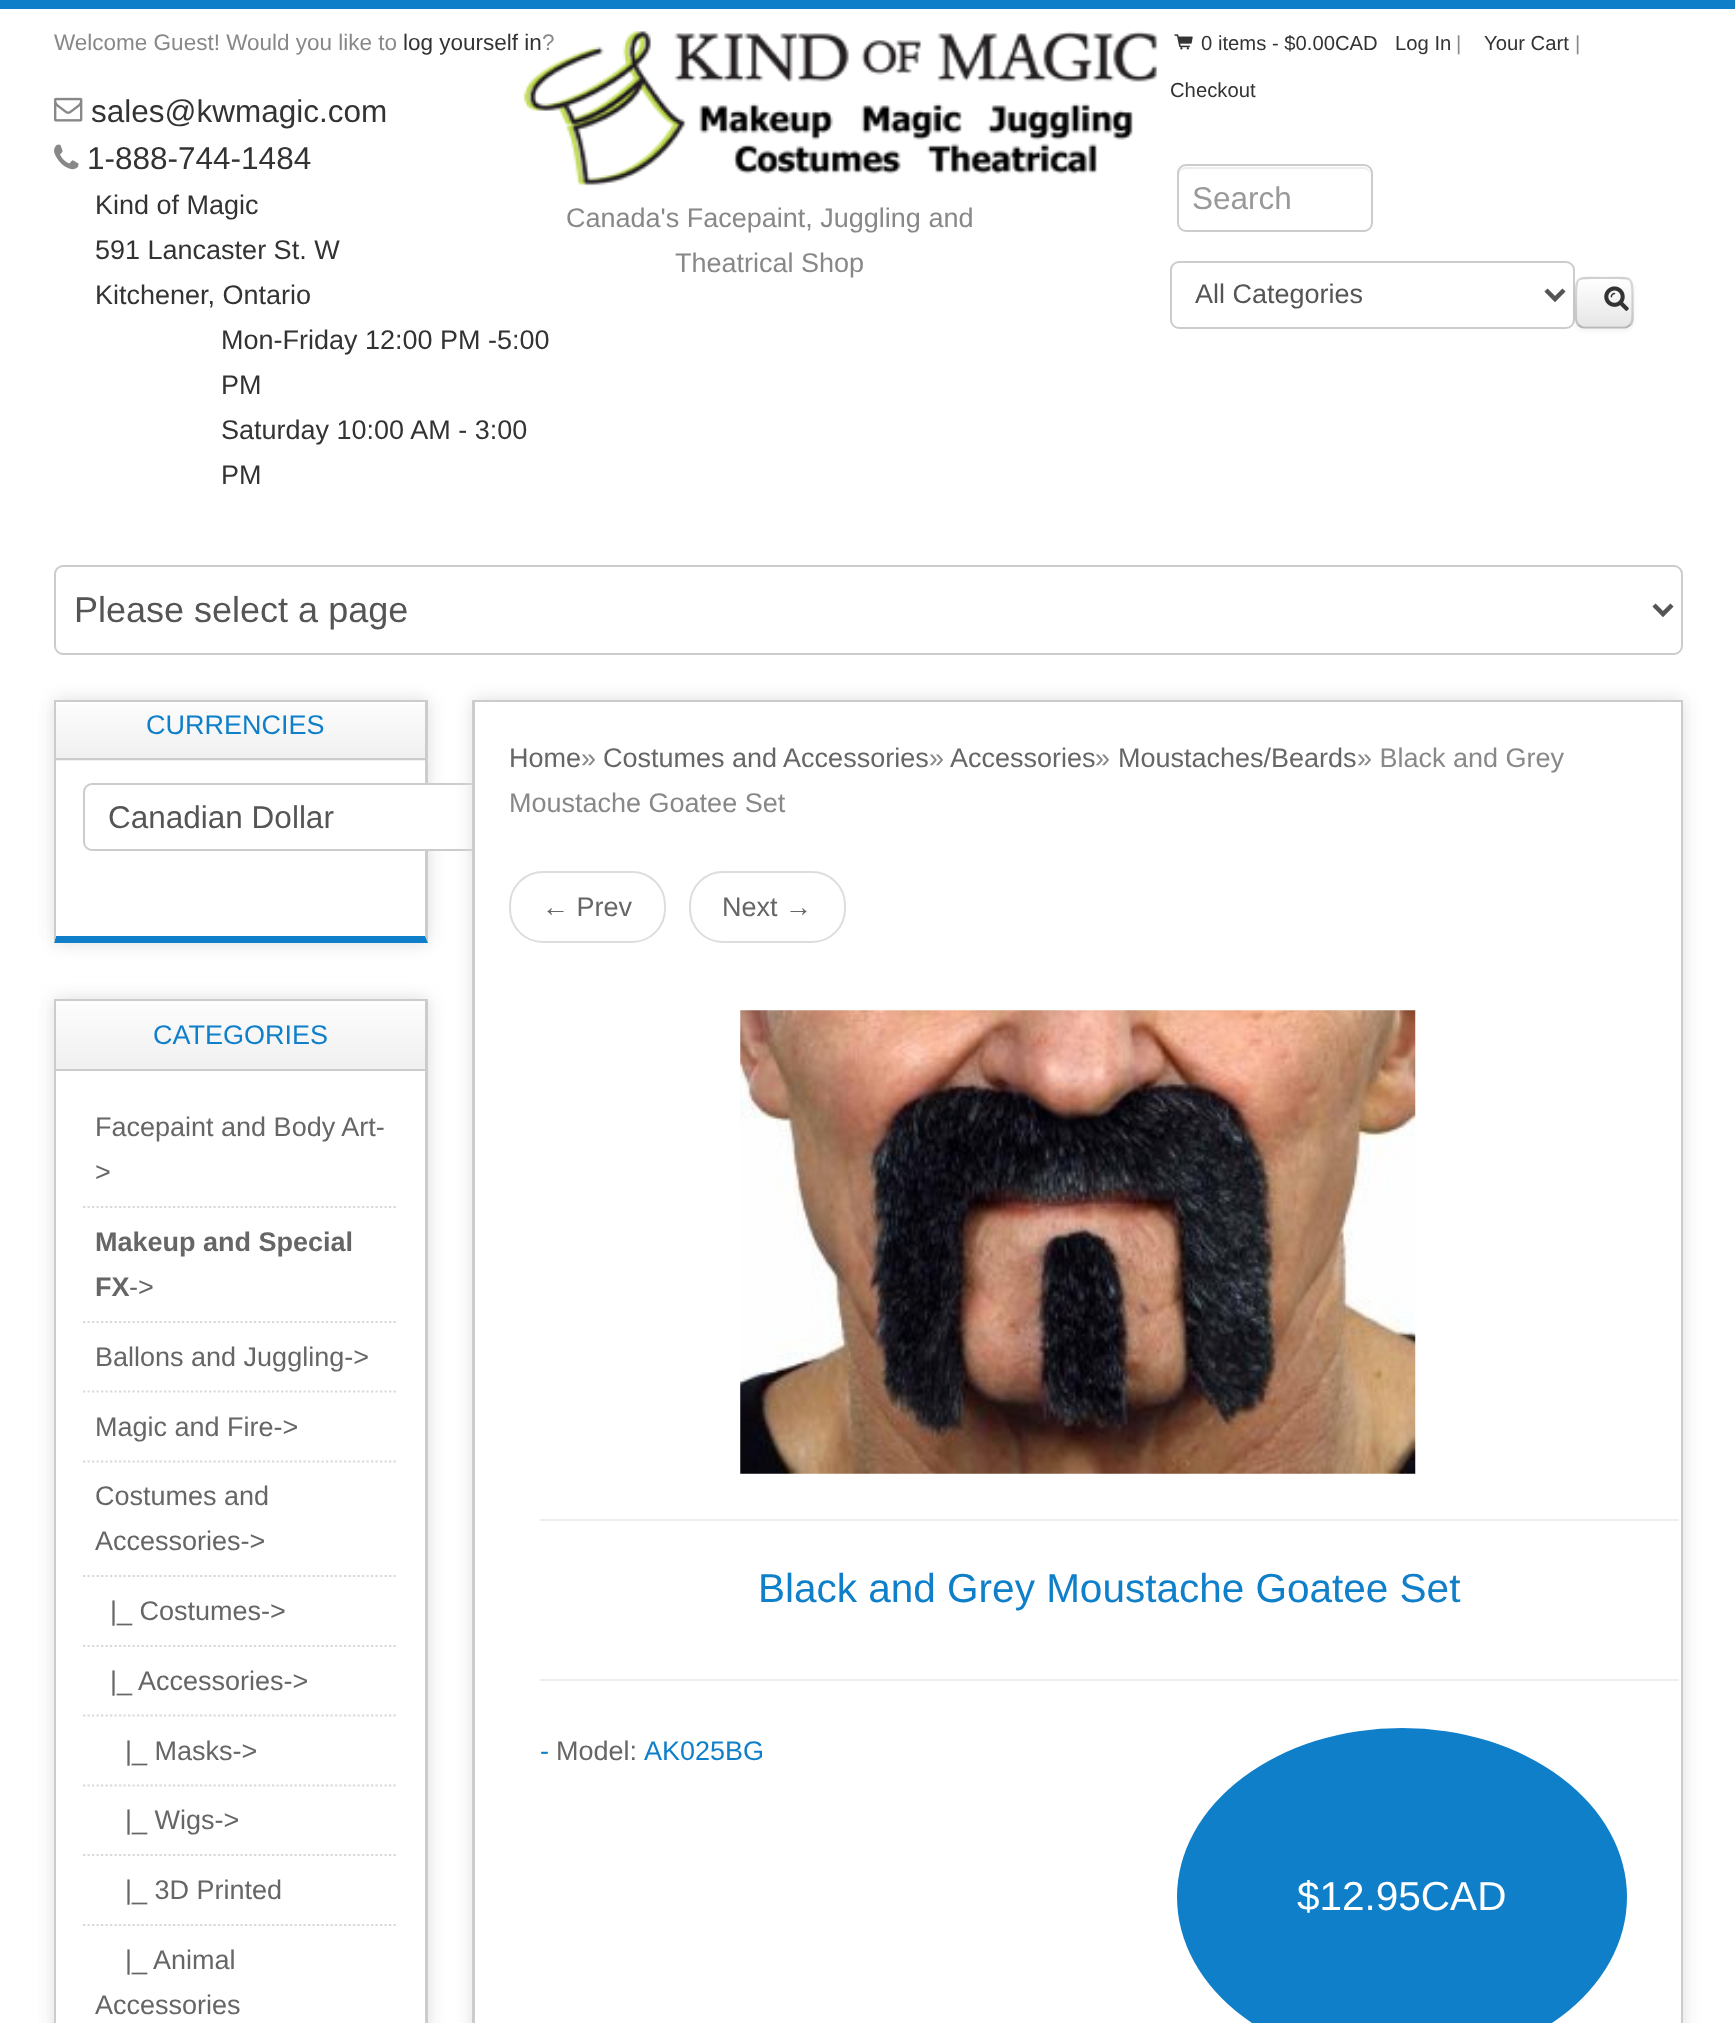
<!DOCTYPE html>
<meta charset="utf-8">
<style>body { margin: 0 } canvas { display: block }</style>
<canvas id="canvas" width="1735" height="2023"></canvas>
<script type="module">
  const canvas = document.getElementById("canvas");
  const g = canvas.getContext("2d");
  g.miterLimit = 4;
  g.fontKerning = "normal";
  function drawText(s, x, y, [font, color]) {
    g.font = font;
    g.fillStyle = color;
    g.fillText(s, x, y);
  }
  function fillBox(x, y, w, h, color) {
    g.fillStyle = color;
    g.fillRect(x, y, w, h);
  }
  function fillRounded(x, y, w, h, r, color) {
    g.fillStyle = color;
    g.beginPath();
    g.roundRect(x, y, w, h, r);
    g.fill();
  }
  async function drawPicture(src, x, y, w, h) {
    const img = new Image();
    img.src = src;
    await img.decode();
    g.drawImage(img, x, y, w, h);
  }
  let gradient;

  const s1 = ["22.5px Liberation Sans", "#888888"];
  const s2 = ["22.5px Liberation Sans", "#333333"];
  const s3 = ["31.5px Liberation Sans", "#333333"];
  const s4 = ["27px Liberation Sans", "#333333"];
  const s5 = ["27px Liberation Sans", "#888888"];
  const s6 = ["20.25px Liberation Sans", "#333333"];
  const s7 = ["20.25px Liberation Sans", "#888888"];
  const s8 = ["31.5px Liberation Sans", "#999999"];
  const s9 = ["27px Liberation Sans", "#555555"];
  const s10 = ["36px Liberation Sans", "#555555"];
  const s11 = ["27px Liberation Sans", "#107FC9"];
  const s12 = ["31.5px Liberation Sans", "#555555"];
  const s13 = ["27px Liberation Sans", "#666666"];
  const s14 = ["bold 27px Liberation Sans", "#666666"];
  const s15 = ["40.5px Liberation Sans", "#107FC9"];
  const s16 = ["40.5px Liberation Sans", "#FFFFFF"];

  fillBox(0, 0, 1735, 2023, "#FFFFFF");
  fillBox(0, 0, 1735, 9, "#107FC9");
  drawText("Welcome Guest! Would you like to", 54, 50, s1);
  drawText("log yourself in", 403, 50, s2);
  drawText("?", 542, 50, s1);
  await drawPicture("pic1.png", 54, 97, 29, 25);
  drawText("sales@kwmagic.com", 91, 122, s3);
  await drawPicture("pic2.png", 54, 144, 25, 26);
  drawText("1-888-744-1484", 87, 169, s3);
  drawText("Kind of Magic", 95, 214, s4);
  drawText("591 Lancaster St. W", 95, 259, s4);
  drawText("Kitchener, Ontario", 95, 304, s4);
  drawText("Mon-Friday 12:00 PM -5:00", 221, 349, s4);
  drawText("PM", 221, 394, s4);
  drawText("Saturday 10:00 AM - 3:00", 221, 439, s4);
  drawText("PM", 221, 484, s4);
  await drawPicture("pic3.png", 523, 31, 635, 155);
  drawText("Canada's Facepaint, Juggling and", 566, 227, s5);
  drawText("Theatrical Shop", 675, 272, s5);
  await drawPicture("pic4.png", 1174, 34, 19, 16);
  drawText("0 items - $0.00CAD", 1201, 50, s6);
  drawText("Log In", 1395, 50, s6);
  drawText("|", 1456, 50, s7);
  drawText("Your Cart", 1484, 50, s6);
  drawText("|", 1575, 50, s7);
  drawText("Checkout", 1170, 97, s6);
  g.fillStyle = "#ECECEC";
  g.beginPath();
  g.moveTo(1186, 169);
  g.lineTo(1364, 169);
  g.bezierCurveTo(1367, 169, 1370, 172, 1370, 176);
  g.lineTo(1370, 174);
  g.bezierCurveTo(1370, 170, 1367, 167, 1363, 167);
  g.lineTo(1186, 167);
  g.bezierCurveTo(1182, 167, 1179, 170, 1179, 174);
  g.lineTo(1179, 176);
  g.bezierCurveTo(1179, 172, 1182, 169, 1186, 169);
  g.closePath();
  g.fill();
  g.beginPath();
  g.roundRect(1178, 165, 194, 66, 8);
  g.strokeStyle = "#CCCCCC";
  g.lineWidth = 2;
  g.stroke();
  drawText("Search", 1192, 209, s8);
  g.beginPath();
  g.roundRect(1171, 262, 403, 66, 8);
  g.stroke();
  g.beginPath();
  g.moveTo(1546, 290);
  g.lineTo(1555, 299);
  g.lineTo(1564, 290);
  g.strokeStyle = "#555555";
  g.lineWidth = 4.5;
  g.stroke();
  drawText("All Categories", 1195, 303, s9);
  g.fillStyle = "rgba(0, 0, 0, 0.05)";
  g.filter = "blur(2px)";
  g.beginPath();
  g.roundRect(1575, 279, 59, 52, 9);
  g.fill();
  g.filter = "none";
  fillRounded(1575, 277, 59, 52, 9, "#F5F5F5");
  g.save();
  g.beginPath();
  g.roundRect(1575, 277, 59, 52, 9);
  g.clip();
  gradient = g.createLinearGradient(1604, 279, 1604, 326);
  gradient.addColorStop(0, "#FFFFFF");
  gradient.addColorStop(1, "#E6E6E6");
  g.fillStyle = gradient;
  g.fillRect(1575, 279, 59, 47);
  g.restore();
  g.beginPath();
  g.moveTo(1630, 325);
  g.bezierCurveTo(1628.5, 326.5, 1626.5, 327.5, 1624.5, 327.5);
  g.lineTo(1584, 327.5);
  g.bezierCurveTo(1582, 327.5, 1580, 326.5, 1578.5, 325);
  g.strokeStyle = "rgba(0, 0, 0, 0.25)";
  g.lineWidth = 2.2;
  g.stroke();
  g.beginPath();
  g.moveTo(1578.5, 325);
  g.bezierCurveTo(1575.5, 322, 1576, 318, 1576, 314);
  g.lineTo(1576, 302.5);
  g.bezierCurveTo(1576, 274, 1574.5, 278, 1604, 278);
  g.bezierCurveTo(1634, 278, 1632.5, 274, 1632.5, 302.5);
  g.lineTo(1632.5, 314);
  g.bezierCurveTo(1632.5, 318, 1633, 322, 1630, 325);
  g.strokeStyle = "rgba(0, 0, 0, 0.15)";
  g.stroke();
  await drawPicture("pic5.png", 1604, 286, 25, 25);
  g.beginPath();
  g.roundRect(55, 566, 1627, 88, 8);
  g.strokeStyle = "#CCCCCC";
  g.lineWidth = 2;
  g.stroke();
  g.beginPath();
  g.moveTo(1654, 605);
  g.lineTo(1663, 614);
  g.lineTo(1672, 605);
  g.strokeStyle = "#555555";
  g.lineWidth = 4.5;
  g.stroke();
  drawText("Please select a page", 74, 622, s10);
  g.save();
  g.beginPath();
  g.moveTo(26, 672);
  g.lineTo(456, 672);
  g.lineTo(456, 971);
  g.lineTo(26, 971);
  g.closePath();
  g.moveTo(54, 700);
  g.lineTo(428, 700);
  g.lineTo(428, 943);
  g.lineTo(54, 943);
  g.closePath();
  g.clip("evenodd");
  g.fillStyle = "#DDDDDD";
  g.filter = "blur(9px)";
  g.beginPath();
  g.rect(54, 700, 374, 243);
  g.fill();
  g.filter = "none";
  g.restore();
  fillBox(54, 700, 374, 2, "#CCCCCC");
  g.beginPath();
  g.moveTo(428, 700);
  g.lineTo(428, 943);
  g.lineTo(425, 936);
  g.lineTo(425, 702);
  g.closePath();
  g.fill();
  g.fillStyle = "#107FC9";
  g.beginPath();
  g.moveTo(428, 943);
  g.lineTo(54, 943);
  g.lineTo(56, 936);
  g.lineTo(425, 936);
  g.closePath();
  g.fill();
  g.fillStyle = "#CCCCCC";
  g.beginPath();
  g.moveTo(54, 943);
  g.lineTo(54, 700);
  g.lineTo(56, 702);
  g.lineTo(56, 936);
  g.closePath();
  g.fill();
  fillBox(56, 760, 369, 1, "#F0F0F0");
  gradient = g.createLinearGradient(241, 702, 241, 758);
  gradient.addColorStop(0, "#FDFDFD");
  gradient.addColorStop(1, "#F0F0F0");
  g.fillStyle = gradient;
  g.fillRect(56, 704, 369, 54);
  fillBox(56, 758, 369, 2, "#CCCCCC");
  drawText("CURRENCIES", 146, 734, s11);
  g.fillStyle = "#FFFFFF";
  g.beginPath();
  g.roundRect(84, 784, 493, 66, 8);
  g.fill();
  g.strokeStyle = "#CCCCCC";
  g.lineWidth = 2;
  g.stroke();
  drawText("Canadian Dollar", 108, 828, s12);
  g.save();
  g.beginPath();
  g.moveTo(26, 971);
  g.lineTo(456, 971);
  g.lineTo(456, 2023);
  g.lineTo(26, 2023);
  g.closePath();
  g.moveTo(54, 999);
  g.lineTo(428, 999);
  g.lineTo(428, 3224);
  g.lineTo(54, 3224);
  g.closePath();
  g.clip("evenodd");
  g.fillStyle = "#DDDDDD";
  g.filter = "blur(9px)";
  g.beginPath();
  g.rect(54, 999, 374, 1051);
  g.fill();
  g.filter = "none";
  g.restore();
  fillBox(54, 999, 374, 2, "#CCCCCC");
  g.beginPath();
  g.moveTo(428, 999);
  g.lineTo(428, 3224);
  g.lineTo(425, 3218);
  g.lineTo(425, 1001);
  g.closePath();
  g.fill();
  g.beginPath();
  g.moveTo(54, 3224);
  g.lineTo(54, 999);
  g.lineTo(56, 1001);
  g.lineTo(56, 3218);
  g.closePath();
  g.fill();
  gradient = g.createLinearGradient(241, 1001, 241, 1069);
  gradient.addColorStop(0, "#FDFDFD");
  gradient.addColorStop(1, "#F0F0F0");
  g.fillStyle = gradient;
  g.fillRect(56, 1004, 369, 65);
  fillBox(56, 1069, 369, 2, "#CCCCCC");
  drawText("CATEGORIES", 153, 1044, s11);
  g.beginPath();
  g.moveTo(83, 1207);
  g.lineTo(398, 1207);
  g.strokeStyle = "#D9D9D9";
  g.lineWidth = 2.2;
  g.setLineDash([2.25, 2.25]);
  g.stroke();
  drawText("Facepaint and Body Art-", 95, 1136, s13);
  drawText(">", 95, 1181, s13);
  g.beginPath();
  g.moveTo(83, 1322);
  g.lineTo(398, 1322);
  g.stroke();
  drawText("Makeup and Special", 95, 1251, s14);
  drawText("FX", 95, 1296, s14);
  drawText("->", 129, 1296, s13);
  g.beginPath();
  g.moveTo(83, 1391.5);
  g.lineTo(398, 1391.5);
  g.stroke();
  drawText("Ballons and Juggling->", 95, 1366, s13);
  g.beginPath();
  g.moveTo(83, 1461.5);
  g.lineTo(398, 1461.5);
  g.stroke();
  drawText("Magic and Fire->", 95, 1436, s13);
  g.beginPath();
  g.moveTo(83, 1576);
  g.lineTo(398, 1576);
  g.stroke();
  drawText("Costumes and", 95, 1505, s13);
  drawText("Accessories->", 95, 1550, s13);
  g.beginPath();
  g.moveTo(83, 1646);
  g.lineTo(398, 1646);
  g.stroke();
  drawText("|_ Costumes->", 110, 1620, s13);
  g.beginPath();
  g.moveTo(83, 1715.5);
  g.lineTo(398, 1715.5);
  g.stroke();
  drawText("|_ Accessories->", 110, 1690, s13);
  g.beginPath();
  g.moveTo(83, 1785.5);
  g.lineTo(398, 1785.5);
  g.stroke();
  drawText("|_ Masks->", 125, 1760, s13);
  g.beginPath();
  g.moveTo(83, 1855);
  g.lineTo(398, 1855);
  g.stroke();
  drawText("|_ Wigs->", 125, 1829, s13);
  g.beginPath();
  g.moveTo(83, 1925);
  g.lineTo(398, 1925);
  g.stroke();
  drawText("|_ 3D Printed", 125, 1899, s13);
  drawText("|_ Animal", 125, 1969, s13);
  drawText("Accessories", 95, 2014, s13);
  g.fillStyle = "#DDDDDD";
  g.filter = "blur(9px)";
  g.beginPath();
  g.rect(473, 700, 1210, 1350);
  g.fill();
  g.filter = "none";
  fillBox(475, 702, 1206, 1321, "#FFFFFF");
  fillBox(473, 700, 1210, 2, "#CCCCCC");
  g.beginPath();
  g.moveTo(1683, 700);
  g.lineTo(1683, 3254);
  g.lineTo(1681, 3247);
  g.lineTo(1681, 702);
  g.closePath();
  g.fill();
  g.beginPath();
  g.moveTo(472, 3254);
  g.lineTo(472, 700);
  g.lineTo(475, 702);
  g.lineTo(475, 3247);
  g.closePath();
  g.fill();
  drawText("Home", 509, 767, s13);
  drawText("»", 581, 767, s5);
  drawText("Costumes and Accessories", 603, 767, s13);
  drawText("»", 929, 767, s5);
  drawText("Accessories", 950, 767, s13);
  drawText("»", 1095, 767, s5);
  drawText("Moustaches/Beards", 1118, 767, s13);
  drawText("» Black and Grey", 1357, 767, s5);
  drawText("Moustache Goatee Set", 509, 812, s5);
  g.beginPath();
  g.roundRect(510, 872, 155, 70, 33);
  g.strokeStyle = "#DDDDDD";
  g.lineWidth = 2;
  g.setLineDash([]);
  g.stroke();
  drawText("← Prev", 542, 916, s13);
  g.beginPath();
  g.roundRect(690, 872, 155, 70, 33);
  g.stroke();
  drawText("Next →", 722, 916, s13);
  await drawPicture("pic6.png", 740, 1010, 676, 464);
  fillBox(540, 1519, 1139, 2, "#EEEEEE");
  drawText("Black and Grey Moustache Goatee Set", 758, 1602, s15);
  fillBox(540, 1679, 1139, 2, "#EEEEEE");
  drawText("-", 540, 1760, s11);
  drawText("Model:", 556, 1760, s13);
  drawText("AK025BG", 644, 1760, s11);
  g.beginPath();
  g.ellipse(1402, 1897, 225, 169, 0, 0, Math.PI * 2);
  g.fill();
  drawText("$12.95CAD", 1297, 1910, s16);
</script>
